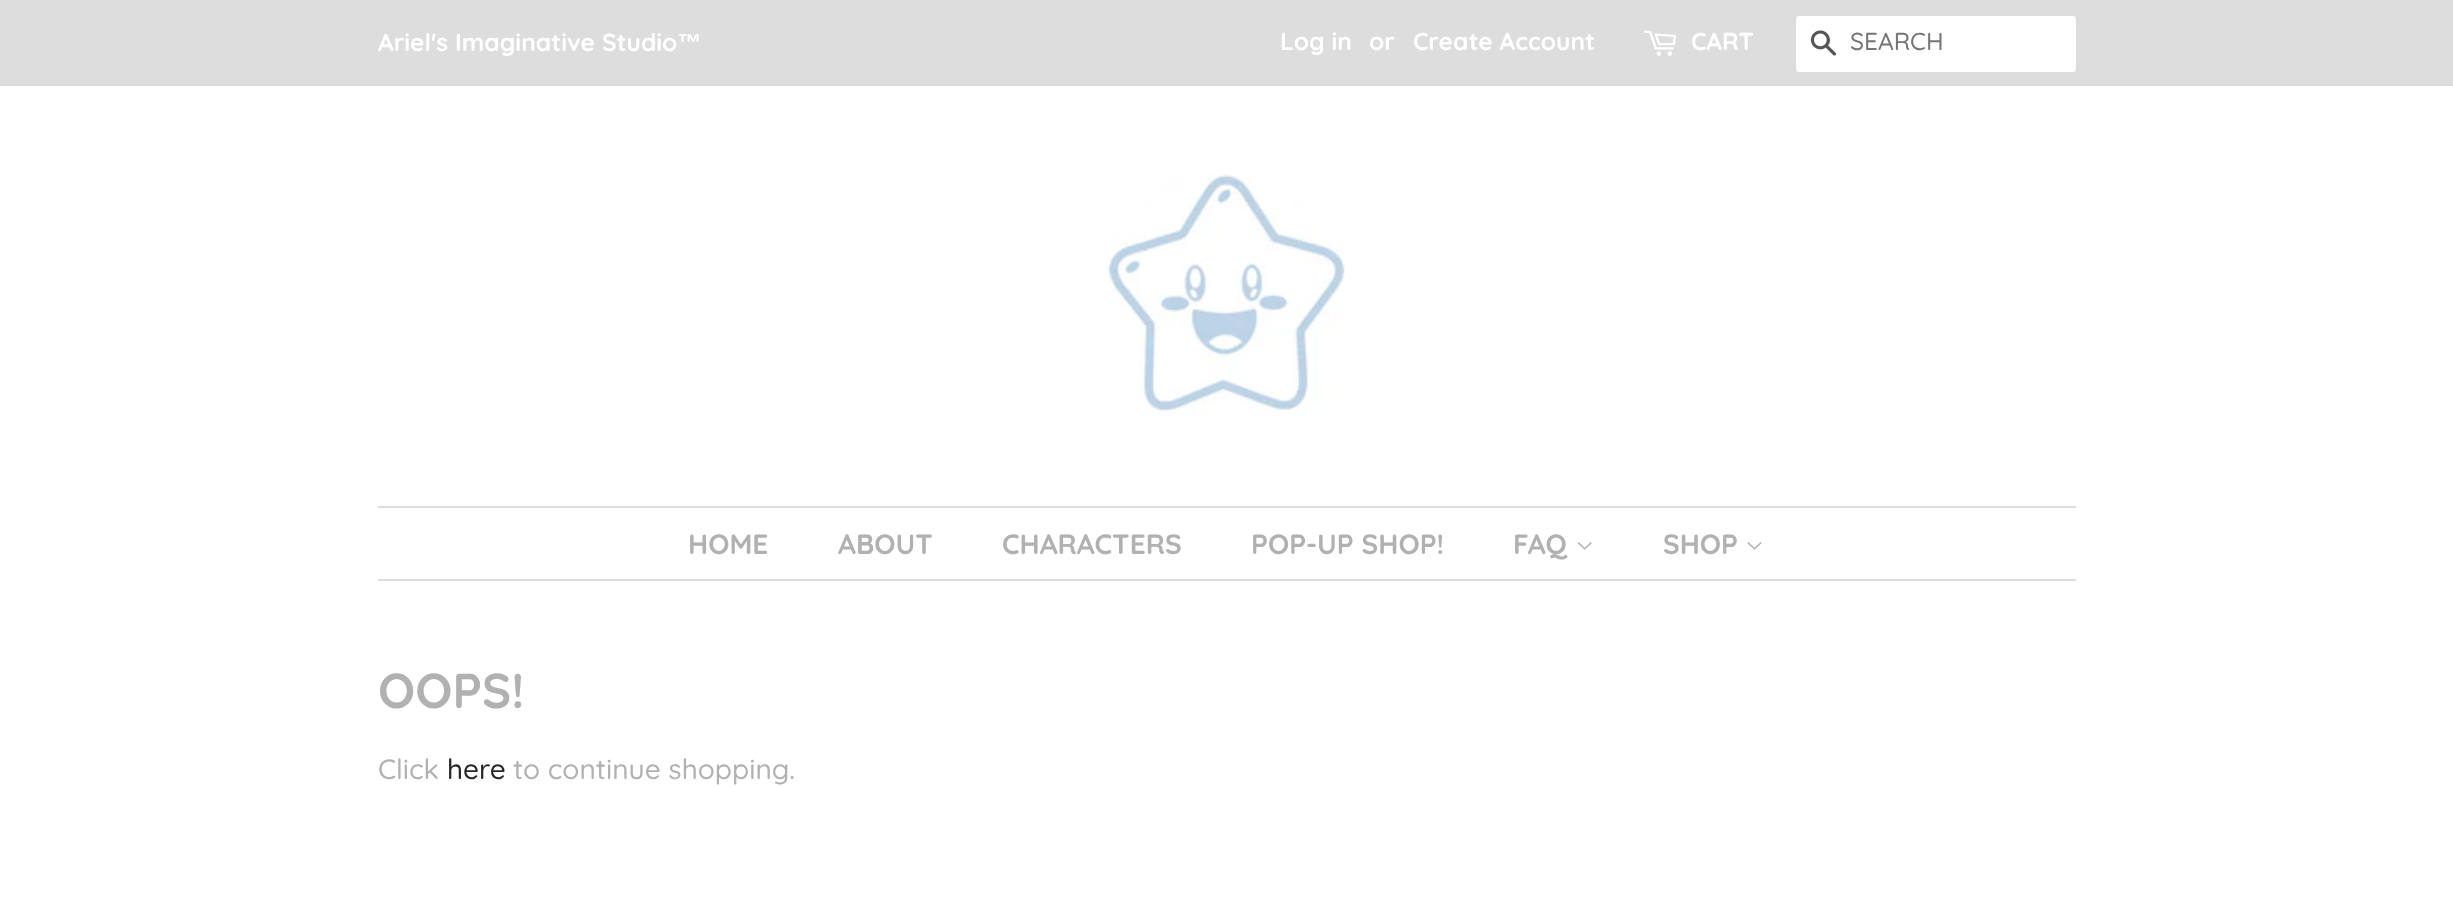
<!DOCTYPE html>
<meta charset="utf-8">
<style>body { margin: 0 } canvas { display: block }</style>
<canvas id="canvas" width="2453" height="907"></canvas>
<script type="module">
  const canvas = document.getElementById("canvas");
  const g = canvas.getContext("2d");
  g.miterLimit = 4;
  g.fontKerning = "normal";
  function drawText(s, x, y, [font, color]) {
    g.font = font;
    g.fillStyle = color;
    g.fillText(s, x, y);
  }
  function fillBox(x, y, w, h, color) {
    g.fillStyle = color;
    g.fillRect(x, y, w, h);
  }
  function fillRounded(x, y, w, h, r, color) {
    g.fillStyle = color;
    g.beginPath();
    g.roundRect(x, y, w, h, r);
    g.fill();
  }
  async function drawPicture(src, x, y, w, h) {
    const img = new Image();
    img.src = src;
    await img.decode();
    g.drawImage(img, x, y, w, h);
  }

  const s1 = ["bold 24.5px Quicksand", "#FFFFFF"];
  const s2 = ["bold 24.5px Liberation Sans", "#FFFFFF"];
  const s3 = ["500 24.5px Quicksand", "#757575"];
  const s4 = ["bold 28px Quicksand", "#B1B1B1"];
  const s5 = ["bold 49px Quicksand", "#B1B1B1"];
  const s6 = ["500 28px Quicksand", "#B1B1B1"];
  const s7 = ["500 28px Quicksand", "#272727"];

  fillBox(0, 0, 2453, 907, "#FFFFFF");
  fillBox(0, 0, 2453, 86, "#DDDDDD");
  drawText("Ariel's Imaginative Studio", 378, 51, s1);
  drawText("™", 677, 51, s2);
  drawText("Log in", 1280, 50, s1);
  drawText("or", 1369, 50, s1);
  drawText("Create Account", 1413, 50, s1);
  await drawPicture("pic1.png", 1644, 30, 32, 26);
  drawText("CART", 1691, 50, s1);
  fillRounded(1796, 16, 280, 56, 4, "#FFFFFF");
  await drawPicture("pic2.png", 1810, 30, 26, 26);
  drawText("SEARCH", 1850, 50, s3);
  await drawPicture("pic3.png", 1107, 174, 238, 243);
  fillBox(378, 506, 1698, 2, "#DDDDDD");
  fillBox(378, 579, 1698, 2, "#DDDDDD");
  drawText("HOME", 688, 554, s4);
  drawText("ABOUT", 838, 554, s4);
  drawText("CHARACTERS", 1002, 554, s4);
  drawText("POP-UP SHOP!", 1251, 554, s4);
  drawText("FAQ", 1513, 554, s4);
  await drawPicture("pic4.png", 1577, 542, 15, 8);
  drawText("SHOP", 1663, 554, s4);
  await drawPicture("pic5.png", 1747, 542, 15, 8);
  drawText("OOPS!", 378, 708, s5);
  drawText("Click", 378, 779, s6);
  drawText("here", 447, 779, s7);
  drawText("to continue shopping.", 513, 779, s6);
</script>
